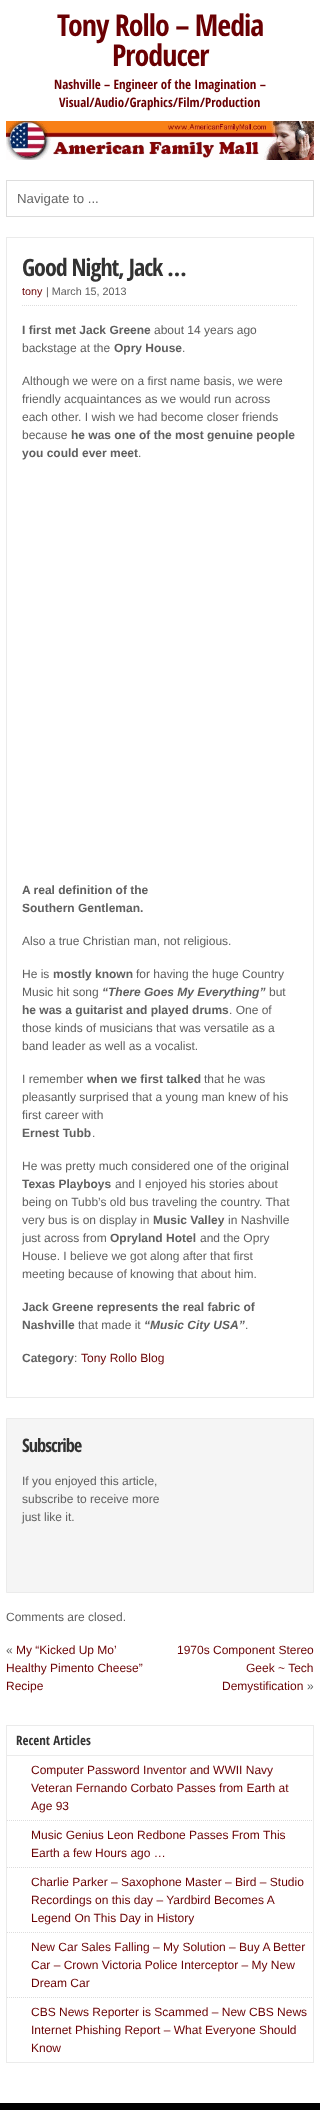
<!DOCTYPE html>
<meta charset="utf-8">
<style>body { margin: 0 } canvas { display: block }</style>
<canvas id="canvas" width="320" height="2110"></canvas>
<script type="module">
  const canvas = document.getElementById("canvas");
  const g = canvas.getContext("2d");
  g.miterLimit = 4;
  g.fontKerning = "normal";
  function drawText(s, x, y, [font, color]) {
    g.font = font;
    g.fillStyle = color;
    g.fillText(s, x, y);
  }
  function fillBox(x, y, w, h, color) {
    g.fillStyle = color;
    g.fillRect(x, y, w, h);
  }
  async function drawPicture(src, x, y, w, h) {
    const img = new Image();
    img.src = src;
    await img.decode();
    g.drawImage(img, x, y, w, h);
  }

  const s1 = ["bold 30px Open Sans Condensed", "#6A0003"];
  const s2 = ["bold 13px Open Sans Condensed", "#6A0003"];
  const s3 = ["13.25px Liberation Sans", "#666666"];
  const s4 = ["bold 24px Open Sans Condensed", "#333333"];
  const s5 = ["10.75px Liberation Sans", "#6A0003"];
  const s6 = ["10.75px Liberation Sans", "#606060"];
  const s7 = ["bold 12px Liberation Sans", "#606060"];
  const s8 = ["12px Liberation Sans", "#606060"];
  const s9 = ["italic bold 12px Liberation Sans", "#606060"];
  const s10 = ["12px Liberation Sans", "#6A0003"];
  const s11 = ["bold 18.5px Open Sans Condensed", "#333333"];
  const s12 = ["bold 13px Open Sans Condensed", "#333333"];

  fillBox(0, 0, 320, 2110, "#000000");
  fillBox(0, 0, 320, 2103, "#FFFFFF");
  g.letterSpacing = "-1px";
  drawText("Tony Rollo – Media", 57, 36, s1);
  drawText("Producer", 112, 66, s1);
  g.letterSpacing = "0px";
  drawText("Nashville – Engineer of the Imagination –", 54, 89, s2);
  drawText("Visual/Audio/Graphics/Film/Production", 59, 107, s2);
  await drawPicture("pic1.png", 6, 121, 308, 39);
  g.strokeStyle = "#DDDDDD";
  g.strokeRect(6.5, 180.5, 307, 36);
  drawText("Navigate to ...", 17, 203, s3);
  g.strokeStyle = "#EBEBEB";
  g.strokeRect(6.5, 237.5, 307, 1160);
  g.letterSpacing = "-1px";
  drawText("Good Night, Jack …", 22, 276, s4);
  g.beginPath();
  g.moveTo(22, 305.5);
  g.lineTo(298, 305.5);
  g.strokeStyle = "#DDDDDD";
  g.setLineDash([1, 1]);
  g.stroke();
  g.letterSpacing = "0px";
  drawText("tony", 22, 295, s5);
  drawText("| March 15, 2013", 46, 295, s6);
  drawText("I first met Jack Greene", 22, 334, s7);
  drawText("about 14 years ago", 154, 334, s8);
  drawText("backstage at the", 22, 352, s8);
  drawText("Opry House", 114, 352, s7);
  drawText(".", 182, 352, s8);
  drawText("Although we were on a first name basis, we were", 22, 385, s8);
  drawText("friendly acquaintances as we would run across", 22, 403, s8);
  drawText("each other. I wish we had become closer friends", 22, 421, s8);
  drawText("because", 22, 439, s8);
  drawText("he was one of the most genuine people", 71, 439, s7);
  drawText("you could ever meet", 22, 457, s7);
  drawText(".", 138, 457, s8);
  drawText("A real definition of the", 22, 894, s7);
  drawText("Southern Gentleman.", 22, 912, s7);
  drawText("Also a true Christian man, not religious.", 22, 945, s8);
  drawText("He is", 22, 978, s8);
  drawText("mostly known", 53, 978, s7);
  drawText("for having the huge Country", 136, 978, s8);
  drawText("Music hit song", 22, 996, s8);
  drawText("“There Goes My Everything”", 102, 996, s9);
  drawText("but", 269, 996, s8);
  drawText("he was a guitarist and played drums", 22, 1014, s7);
  drawText(". One of", 229, 1014, s8);
  drawText("those kinds of musicians that was versatile as a", 22, 1032, s8);
  drawText("band leader as well as a vocalist.", 22, 1050, s8);
  drawText("I remember", 22, 1083, s8);
  drawText("when we first talked", 87, 1083, s7);
  drawText("that he was", 204, 1083, s8);
  drawText("pleasantly surprised that a young man knew of his", 22, 1101, s8);
  drawText("first career with", 22, 1119, s8);
  drawText("Ernest Tubb", 22, 1137, s7);
  drawText(".", 92, 1137, s8);
  drawText("He was pretty much considered one of the original", 22, 1170, s8);
  drawText("Texas Playboys", 22, 1188, s7);
  drawText("and I enjoyed his stories about", 115, 1188, s8);
  drawText("being on Tubb’s old bus traveling the country. That", 22, 1206, s8);
  drawText("very bus is on display in", 22, 1224, s8);
  drawText("Music Valley", 153, 1224, s7);
  drawText("in Nashville", 228, 1224, s8);
  drawText("just across from", 22, 1242, s8);
  drawText("Opryland Hotel", 110, 1242, s7);
  drawText("and the Opry", 200, 1242, s8);
  drawText("House. I believe we got along after that first", 22, 1260, s8);
  drawText("meeting because of knowing that about him.", 22, 1278, s8);
  drawText("Jack Greene represents the real fabric of", 22, 1311, s7);
  drawText("Nashville", 22, 1329, s7);
  drawText("that made it", 78, 1329, s8);
  drawText("“Music City USA”", 144, 1329, s9);
  drawText(".", 245, 1329, s8);
  drawText("Category", 22, 1362, s7);
  drawText(":", 74, 1362, s8);
  drawText("Tony Rollo Blog", 81, 1362, s10);
  g.fillStyle = "#F5F5F5";
  g.beginPath();
  g.rect(6.5, 1418.5, 307, 174);
  g.fill();
  g.strokeStyle = "#EBEBEB";
  g.setLineDash([]);
  g.stroke();
  g.letterSpacing = "-1px";
  drawText("Subscribe", 22, 1452, s11);
  g.letterSpacing = "0px";
  drawText("If you enjoyed this article,", 22, 1485, s8);
  drawText("subscribe to receive more", 22, 1503, s8);
  drawText("just like it.", 22, 1521, s8);
  drawText("Comments are closed.", 6, 1621, s8);
  drawText("«", 6, 1654, s8);
  drawText("My “Kicked Up Mo’", 16, 1654, s10);
  drawText("Healthy Pimento Cheese”", 6, 1672, s10);
  drawText("Recipe", 6, 1690, s10);
  drawText("1970s Component Stereo", 177, 1654, s10);
  drawText("Geek ~ Tech", 246, 1672, s10);
  drawText("Demystification", 222, 1690, s10);
  drawText("»", 307, 1690, s8);
  g.strokeRect(6.5, 1725.5, 307, 337);
  fillBox(7, 1755, 306, 1, "#EBEBEB");
  drawText("Recent Articles", 16, 1745, s12);
  g.beginPath();
  g.moveTo(7, 1820.5);
  g.lineTo(313, 1820.5);
  g.strokeStyle = "#DDDDDD";
  g.setLineDash([1, 1]);
  g.stroke();
  drawText("Computer Password Inventor and WWII Navy", 31, 1774, s10);
  drawText("Veteran Fernando Corbato Passes from Earth at", 31, 1792, s10);
  drawText("Age 93", 31, 1810, s10);
  g.beginPath();
  g.moveTo(7, 1867.5);
  g.lineTo(313, 1867.5);
  g.stroke();
  drawText("Music Genius Leon Redbone Passes From This", 31, 1839, s10);
  drawText("Earth a few Hours ago …", 31, 1857, s10);
  g.beginPath();
  g.moveTo(7, 1932.5);
  g.lineTo(313, 1932.5);
  g.stroke();
  drawText("Charlie Parker – Saxophone Master – Bird – Studio", 31, 1886, s10);
  drawText("Recordings on this day – Yardbird Becomes A", 31, 1904, s10);
  drawText("Legend On This Day in History", 31, 1922, s10);
  g.beginPath();
  g.moveTo(7, 1997.5);
  g.lineTo(313, 1997.5);
  g.stroke();
  drawText("New Car Sales Falling – My Solution – Buy A Better", 31, 1951, s10);
  drawText("Car – Crown Victoria Police Interceptor – My New", 31, 1969, s10);
  drawText("Dream Car", 31, 1987, s10);
  drawText("CBS News Reporter is Scammed – New CBS News", 31, 2016, s10);
  drawText("Internet Phishing Report – What Everyone Should", 31, 2034, s10);
  drawText("Know", 31, 2052, s10);
</script>
